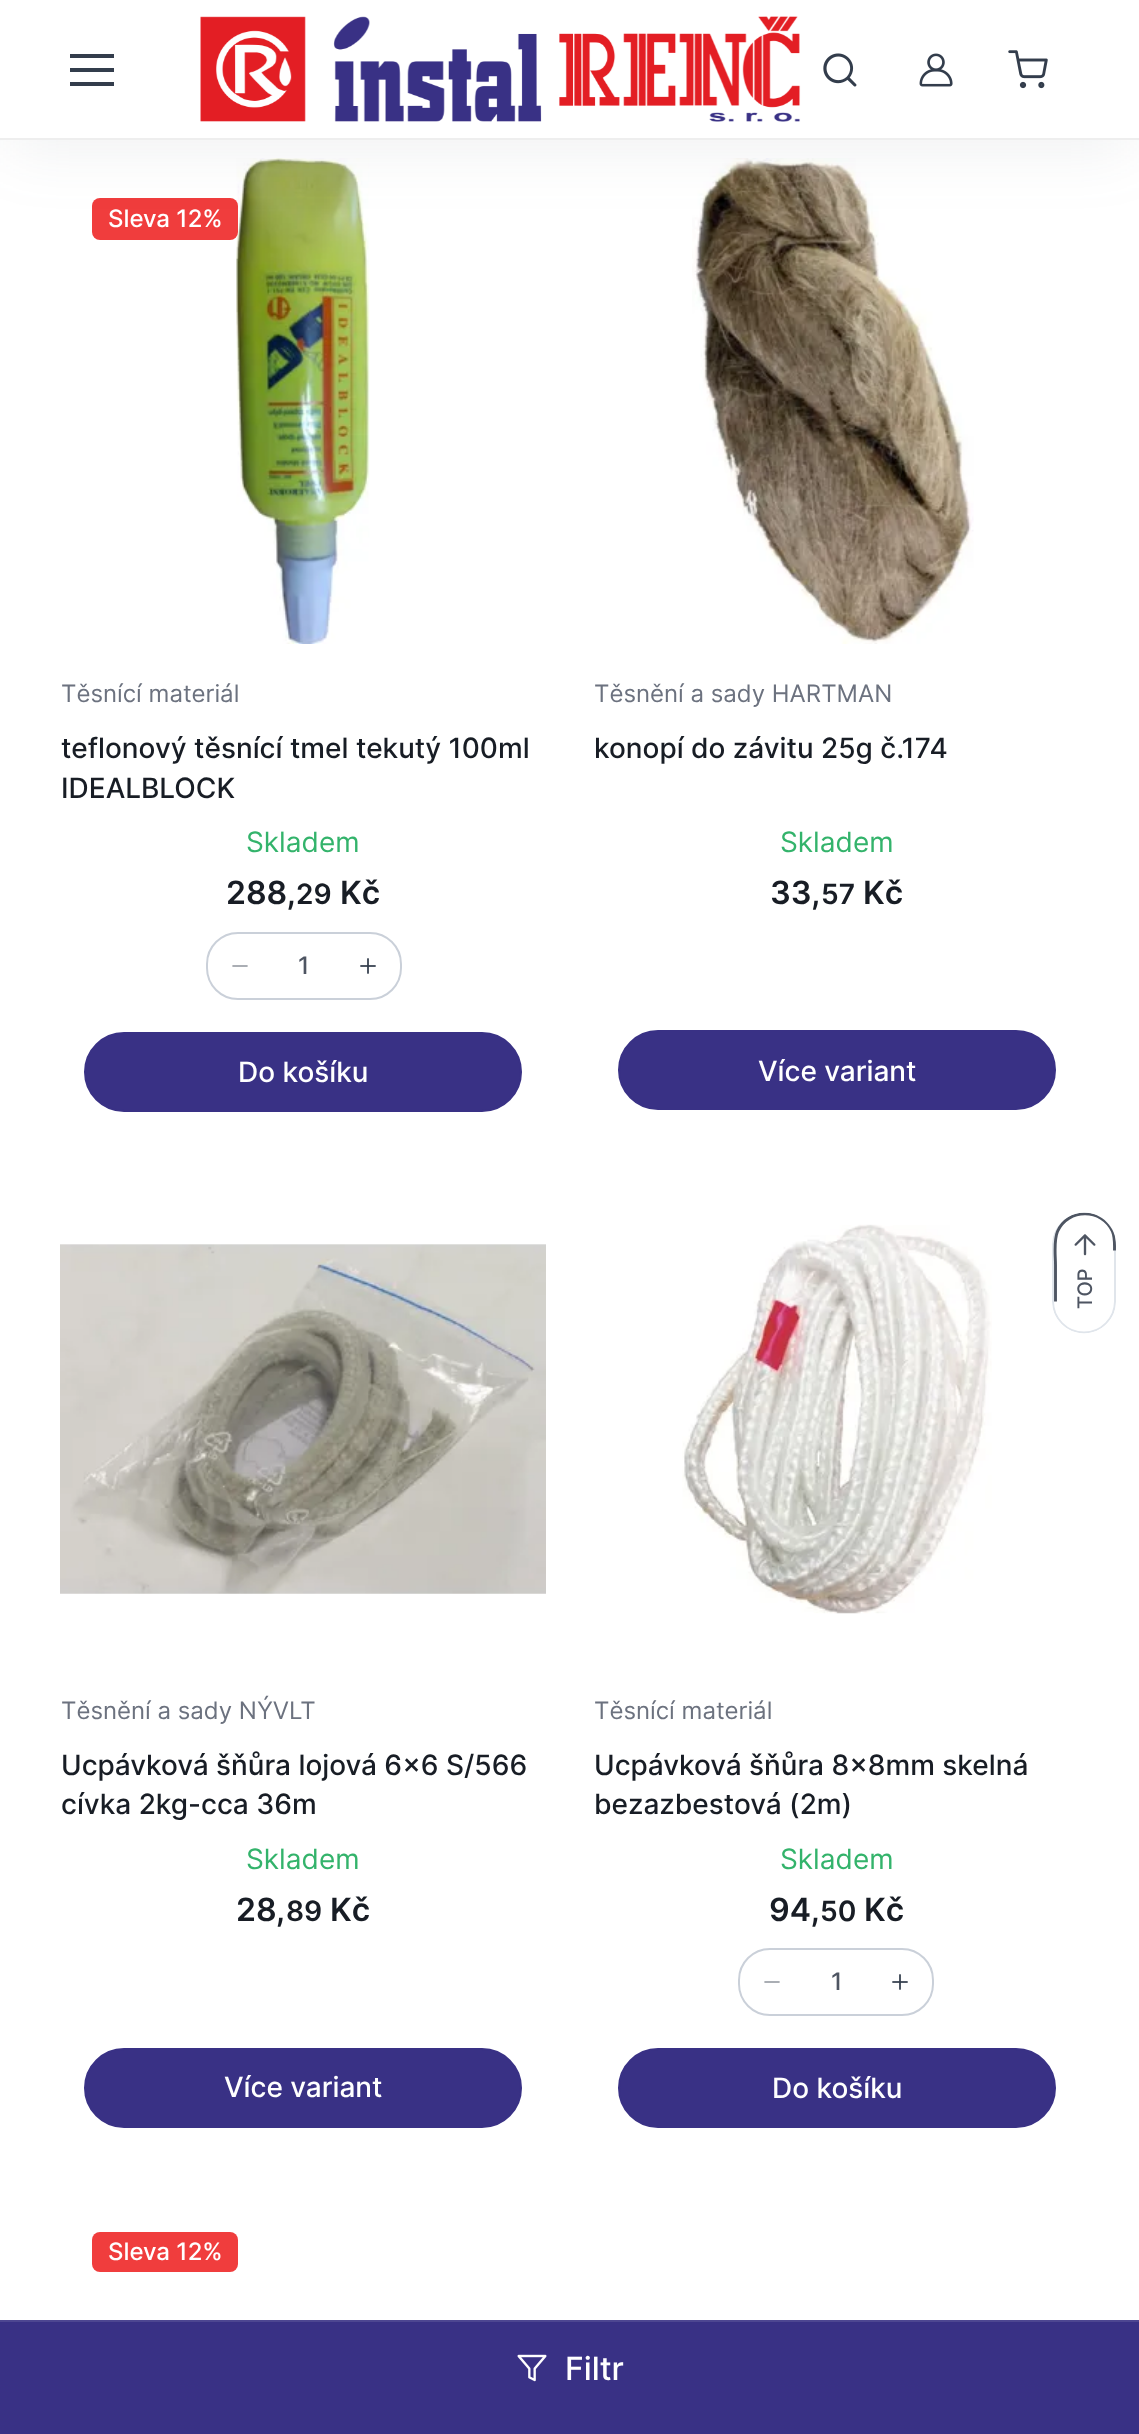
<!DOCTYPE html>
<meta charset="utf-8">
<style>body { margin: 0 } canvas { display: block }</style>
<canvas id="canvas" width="1139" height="2434"></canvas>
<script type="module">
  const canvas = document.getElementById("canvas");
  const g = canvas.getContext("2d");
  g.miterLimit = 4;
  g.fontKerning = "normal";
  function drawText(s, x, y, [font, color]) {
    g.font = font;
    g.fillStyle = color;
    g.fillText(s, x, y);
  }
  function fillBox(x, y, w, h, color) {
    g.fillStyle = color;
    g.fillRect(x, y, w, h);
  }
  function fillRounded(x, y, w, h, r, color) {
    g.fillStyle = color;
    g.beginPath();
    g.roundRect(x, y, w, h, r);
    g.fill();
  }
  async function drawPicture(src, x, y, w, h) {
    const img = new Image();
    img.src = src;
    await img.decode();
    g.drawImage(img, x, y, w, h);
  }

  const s1 = ["500 24px Inter", "#FFFFFF"];
  const s2 = ["24px Inter", "#6C727F"];
  const s3 = ["500 28px Inter", "#181D25"];
  const s4 = ["28px Inter", "#33B36B"];
  const s5 = ["600 32px Inter", "#181D25"];
  const s6 = ["600 28px Inter", "#181D25"];
  const s7 = ["500 24px Inter", "#4E5562"];
  const s8 = ["500 28px Inter", "#FFFFFF"];
  const s9 = ["500 32px Inter", "#FFFFFF"];

  fillBox(0, 0, 1139, 2434, "#FFFFFF");
  await drawPicture("pic5.png", 236, 158, 134, 486);
  fillRounded(92, 198, 146, 42, 8, "#F03D3D");
  await drawPicture("pic8.png", 692, 158, 282, 486);
  g.fillStyle = "rgba(102, 110, 122, 0.1)";
  g.filter = "blur(32px)";
  g.beginPath();
  g.rect(8, 24, 1124, 124);
  g.fill();
  g.filter = "none";
  fillBox(0, 0, 1139, 138, "#FFFFFF");
  fillBox(0, 138, 1139, 2, "#EEEEEE");
  fillBox(70, 68, 44, 4, "#333D4C");
  fillBox(70, 54, 44, 4, "#333D4C");
  fillBox(70, 82, 44, 4, "#333D4C");
  await drawPicture("pic1.png", 200, 16, 601, 106);
  await drawPicture("pic2.png", 823, 53, 34, 34);
  await drawPicture("pic3.png", 919, 53, 34, 34);
  await drawPicture("pic4.png", 1008, 50, 40, 39);
  drawText("Sleva 12%", 108, 227, s1);
  drawText("Těsnící materiál", 61, 702, s2);
  drawText("teflonový těsnící tmel tekutý 100ml", 61, 758, s3);
  drawText("IDEALBLOCK", 61, 798, s3);
  drawText("Skladem", 246, 852, s4);
  drawText("288,", 226, 904, s5);
  drawText("29", 296, 904, s6);
  drawText("Kč", 340, 904, s5);
  g.beginPath();
  g.roundRect(207, 933, 194, 66, 31);
  g.strokeStyle = "#CAD0D9";
  g.lineWidth = 2;
  g.stroke();
  await drawPicture("pic6.png", 232, 965, 16, 2);
  drawText("1", 298, 974, s7);
  await drawPicture("pic7.png", 360, 958, 16, 16);
  g.fillStyle = "#393185";
  g.beginPath();
  g.roundRect(85, 1033, 436, 78, 39);
  g.fill();
  g.strokeStyle = "#393185";
  g.stroke();
  drawText("Do košíku", 238, 1082, s8);
  drawText("Těsnění a sady HARTMAN", 594, 702, s2);
  drawText("konopí do závitu 25g č.174", 594, 758, s3);
  drawText("Skladem", 780, 852, s4);
  drawText("33,", 770, 904, s5);
  drawText("57", 821, 904, s6);
  drawText("Kč", 863, 904, s5);
  g.fillStyle = "#393185";
  g.beginPath();
  g.roundRect(619, 1031, 436, 78, 39);
  g.fill();
  g.stroke();
  drawText("Více variant", 758, 1081, s8);
  await drawPicture("pic9.png", 60, 1244, 486, 350);
  drawText("Těsnění a sady NÝVLT", 61, 1719, s2);
  drawText("Ucpávková šňůra lojová 6x6 S/566", 61, 1775, s3);
  drawText("cívka 2kg-cca 36m", 61, 1814, s3);
  drawText("Skladem", 246, 1869, s4);
  drawText("28,", 236, 1921, s5);
  drawText("89", 286, 1921, s6);
  drawText("Kč", 330, 1921, s5);
  g.fillStyle = "#393185";
  g.beginPath();
  g.roundRect(85, 2049, 436, 78, 39);
  g.fill();
  g.stroke();
  drawText("Více variant", 224, 2097, s8);
  await drawPicture("pic10.png", 682, 1224, 310, 390);
  drawText("Těsnící materiál", 594, 1719, s2);
  drawText("Ucpávková šňůra 8x8mm skelná", 594, 1775, s3);
  drawText("bezazbestová (2m)", 594, 1814, s3);
  drawText("Skladem", 780, 1869, s4);
  drawText("94,", 769, 1921, s5);
  drawText("50", 820, 1921, s6);
  drawText("Kč", 864, 1921, s5);
  g.beginPath();
  g.roundRect(739, 1949, 194, 66, 31);
  g.strokeStyle = "#CAD0D9";
  g.stroke();
  await drawPicture("pic6.png", 764, 1981, 16, 2);
  drawText("1", 831, 1990, s7);
  await drawPicture("pic7.png", 892, 1974, 16, 16);
  g.fillStyle = "#393185";
  g.beginPath();
  g.roundRect(619, 2049, 436, 78, 39);
  g.fill();
  g.strokeStyle = "#393185";
  g.stroke();
  drawText("Do košíku", 772, 2098, s8);
  fillRounded(92, 2232, 146, 40, 8, "#F03D3D");
  drawText("Sleva 12%", 108, 2260, s1);
  await drawPicture("pic11.png", 1074, 1234, 22, 22);
  g.font = "500 20px Inter";
  g.fillStyle = "#4E5562";
  g.save();
  g.translate(1092, 1309);
  g.rotate(-90 * Math.PI / 180);
  g.fillText("TOP", 0, 0);
  g.restore();
  g.save();
  g.beginPath();
  g.moveTo(1052, 1301.5);
  g.lineTo(1052, 1244.5);
  g.bezierCurveTo(1052, 1227, 1066.5, 1212.5, 1084, 1212.5);
  g.bezierCurveTo(1101.5, 1212.5, 1116, 1227, 1116, 1244.5);
  g.lineTo(1116, 1301.5);
  g.bezierCurveTo(1116, 1319, 1101.5, 1333.5, 1084, 1333.5);
  g.bezierCurveTo(1066.5, 1333.5, 1052, 1319, 1052, 1301.5);
  g.closePath();
  g.clip();
  g.beginPath();
  g.moveTo(1053, 1301.5);
  g.lineTo(1053, 1244.5);
  g.bezierCurveTo(1053, 1227.5, 1067, 1213.5, 1084, 1213.5);
  g.bezierCurveTo(1101, 1213.5, 1115, 1227.5, 1115, 1244.5);
  g.lineTo(1115, 1301.5);
  g.bezierCurveTo(1115, 1318.5, 1101, 1332.5, 1084, 1332.5);
  g.bezierCurveTo(1067, 1332.5, 1053, 1318.5, 1053, 1301.5);
  g.closePath();
  g.strokeStyle = "#E0E5EB";
  g.stroke();
  g.restore();
  g.save();
  g.beginPath();
  g.moveTo(1052, 1301.5);
  g.lineTo(1052, 1244.5);
  g.bezierCurveTo(1052, 1227, 1066.5, 1212.5, 1084, 1212.5);
  g.bezierCurveTo(1101.5, 1212.5, 1116, 1227, 1116, 1244.5);
  g.lineTo(1116, 1301.5);
  g.bezierCurveTo(1116, 1319, 1101.5, 1333.5, 1084, 1333.5);
  g.bezierCurveTo(1066.5, 1333.5, 1052, 1319, 1052, 1301.5);
  g.closePath();
  g.clip();
  g.beginPath();
  g.moveTo(1052, 1333.5);
  g.lineTo(1052, 1212.5);
  g.lineTo(1116, 1212.5);
  g.lineTo(1116, 1333.5);
  g.closePath();
  g.clip();
  g.beginPath();
  g.moveTo(1055.5, 1301.5);
  g.lineTo(1055.5, 1265);
  g.bezierCurveTo(1055.5, 1255, 1053.5, 1241, 1057.5, 1231.5);
  g.bezierCurveTo(1068, 1208, 1102, 1208, 1112.5, 1231.5);
  g.bezierCurveTo(1115, 1238, 1114.5, 1244, 1114.5, 1250.5);
  g.strokeStyle = "#4E5562";
  g.lineWidth = 2.9;
  g.stroke();
  g.restore();
  fillBox(0, 2322, 1139, 112, "#393185");
  fillBox(0, 2320, 1139, 2, "#4D4691");
  await drawPicture("pic12.png", 517, 2354, 30, 28);
  drawText("Filtr", 565, 2380, s9);
</script>
